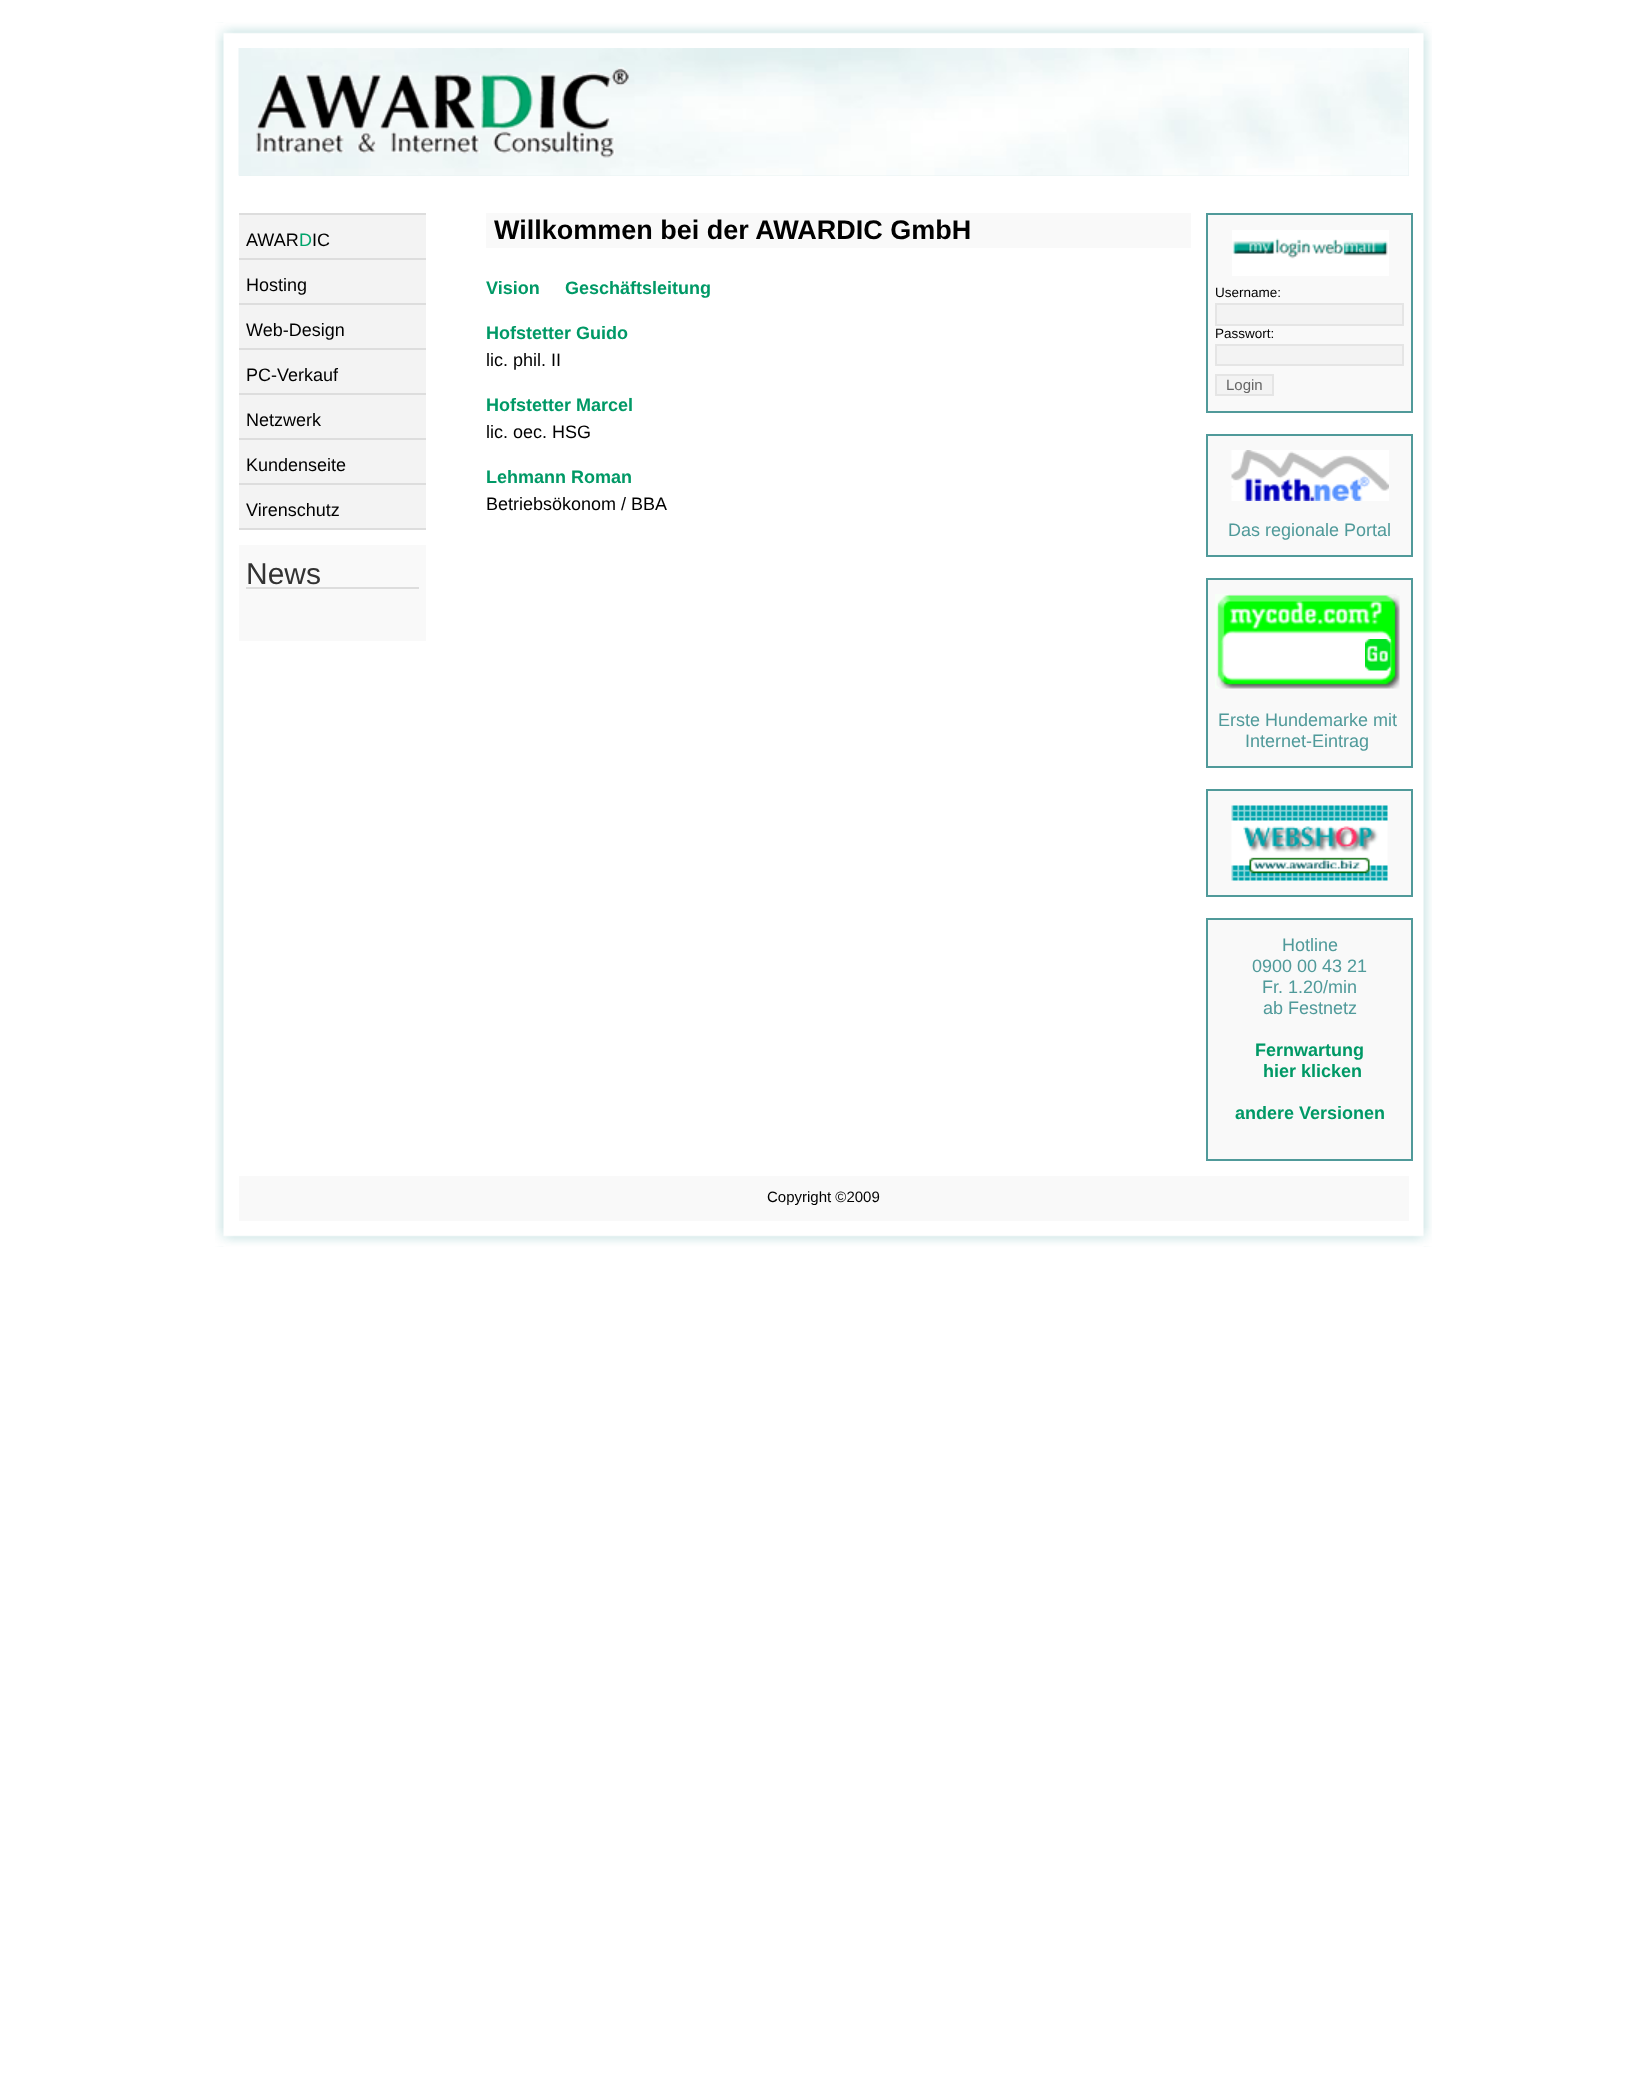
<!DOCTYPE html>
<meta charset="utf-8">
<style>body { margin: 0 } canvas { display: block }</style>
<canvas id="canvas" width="1646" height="2090"></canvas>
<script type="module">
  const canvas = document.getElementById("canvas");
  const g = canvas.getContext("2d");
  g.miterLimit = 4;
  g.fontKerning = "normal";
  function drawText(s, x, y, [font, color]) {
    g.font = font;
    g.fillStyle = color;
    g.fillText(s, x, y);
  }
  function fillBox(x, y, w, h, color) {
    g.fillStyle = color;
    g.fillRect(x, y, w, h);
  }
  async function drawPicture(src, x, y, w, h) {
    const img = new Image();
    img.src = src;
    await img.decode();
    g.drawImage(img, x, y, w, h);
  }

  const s1 = ["18px Liberation Sans", "#000000"];
  const s2 = ["18px Liberation Sans", "#00A46B"];
  const s3 = ["30px Liberation Sans", "#333333"];
  const s4 = ["bold 27px Liberation Sans", "#000000"];
  const s5 = ["bold 18px Liberation Sans", "#009966"];
  const s6 = ["13.5px Liberation Sans", "#000000"];
  const s7 = ["15px Liberation Sans", "#666666"];
  const s8 = ["18px Liberation Sans", "#509A9A"];
  const s9 = ["15px Liberation Sans", "#000000"];

  fillBox(0, 0, 1646, 2090, "#FFFFFF");
  await drawPicture("pic1.png", 215, 22, 1217, 1225);
  await drawPicture("pic2.png", 215, 22, 1217, 19);
  await drawPicture("pic3.png", 215, 1228, 1217, 19);
  fillBox(239, 48, 1170, 128, "#E8F3F3");
  await drawPicture("pic4.png", 238, 48, 1171, 128);
  await drawPicture("pic5.png", 256, 67, 373, 91);
  fillBox(239, 528, 187, 2, "#DDDDDD");
  fillBox(239, 213, 187, 2, "#DDDDDD");
  fillBox(239, 215, 187, 43, "#F3F3F3");
  drawText("AWAR", 246, 246, s1);
  drawText("D", 299, 246, s2);
  drawText("IC", 312, 246, s1);
  fillBox(239, 258, 187, 2, "#DDDDDD");
  fillBox(239, 260, 187, 43, "#F3F3F3");
  drawText("Hosting", 246, 291, s1);
  fillBox(239, 303, 187, 2, "#DDDDDD");
  fillBox(239, 305, 187, 43, "#F3F3F3");
  drawText("Web-Design", 246, 336, s1);
  fillBox(239, 348, 187, 2, "#DDDDDD");
  fillBox(239, 350, 187, 43, "#F3F3F3");
  drawText("PC-Verkauf", 246, 381, s1);
  fillBox(239, 393, 187, 2, "#DDDDDD");
  fillBox(239, 395, 187, 43, "#F3F3F3");
  drawText("Netzwerk", 246, 426, s1);
  fillBox(239, 438, 187, 2, "#DDDDDD");
  fillBox(239, 440, 187, 43, "#F3F3F3");
  drawText("Kundenseite", 246, 471, s1);
  fillBox(239, 483, 187, 2, "#DDDDDD");
  fillBox(239, 485, 187, 43, "#F3F3F3");
  drawText("Virenschutz", 246, 516, s1);
  fillBox(239, 545, 187, 96, "#F9F9F9");
  fillBox(246, 587, 173, 2, "#DDDDDD");
  drawText("News", 246, 584, s3);
  fillBox(486, 213, 705, 35, "#F9F9F9");
  drawText("Willkommen bei der AWARDIC GmbH", 494, 239, s4);
  drawText("Vision", 486, 294, s5);
  drawText("Geschäftsleitung", 565, 294, s5);
  drawText("Hofstetter Guido", 486, 339, s5);
  drawText("lic. phil. II", 486, 366, s1);
  drawText("Hofstetter Marcel", 486, 411, s5);
  drawText("lic. oec. HSG", 486, 438, s1);
  drawText("Lehmann Roman", 486, 483, s5);
  drawText("Betriebsökonom / BBA", 486, 510, s1);
  g.fillStyle = "#F9F9F9";
  g.beginPath();
  g.rect(1207, 214, 205, 198);
  g.fill();
  g.strokeStyle = "#509A9A";
  g.lineWidth = 2;
  g.stroke();
  await drawPicture("pic6.png", 1232, 230, 157, 46);
  drawText("Username:", 1215, 297, s6);
  g.fillStyle = "#F3F3F3";
  g.beginPath();
  g.rect(1216, 304, 187, 21);
  g.fill();
  g.strokeStyle = "#E5E5E5";
  g.stroke();
  drawText("Passwort:", 1215, 338, s6);
  g.fillStyle = "#F3F3F3";
  g.beginPath();
  g.rect(1216, 345, 187, 20);
  g.fill();
  g.stroke();
  g.beginPath();
  g.rect(1216, 375, 57, 20);
  g.fill();
  g.stroke();
  drawText("Login", 1226, 390, s7);
  g.fillStyle = "#F9F9F9";
  g.beginPath();
  g.rect(1207, 435, 205, 121);
  g.fill();
  g.strokeStyle = "#509A9A";
  g.stroke();
  await drawPicture("pic7.png", 1231, 450, 158, 51);
  drawText("Das regionale Portal", 1228, 536, s8);
  g.fillStyle = "#F9F9F9";
  g.beginPath();
  g.rect(1207, 579, 205, 188);
  g.fill();
  g.stroke();
  await drawPicture("pic8.png", 1215, 594, 185, 95);
  fillBox(1224, 645, 1, 20, "#FFFFFF");
  await drawPicture("pic9.png", 1365, 639, 26, 32);
  drawText("Erste Hundemarke mit", 1218, 726, s8);
  drawText("Internet-Eintrag", 1245, 747, s8);
  g.fillStyle = "#F9F9F9";
  g.beginPath();
  g.rect(1207, 790, 205, 106);
  g.fill();
  g.stroke();
  await drawPicture("pic10.png", 1231, 805, 157, 76);
  g.beginPath();
  g.rect(1207, 919, 205, 241);
  g.fill();
  g.stroke();
  drawText("Hotline", 1282, 951, s8);
  drawText("0900 00 43 21", 1252, 972, s8);
  drawText("Fr. 1.20/min", 1262, 993, s8);
  drawText("ab Festnetz", 1263, 1014, s8);
  drawText("Fernwartung", 1255, 1056, s5);
  drawText("hier klicken", 1263, 1077, s5);
  drawText("andere Versionen", 1235, 1119, s5);
  fillBox(239, 1176, 1170, 45, "#F9F9F9");
  drawText("Copyright ©2009", 767, 1202, s9);
</script>
